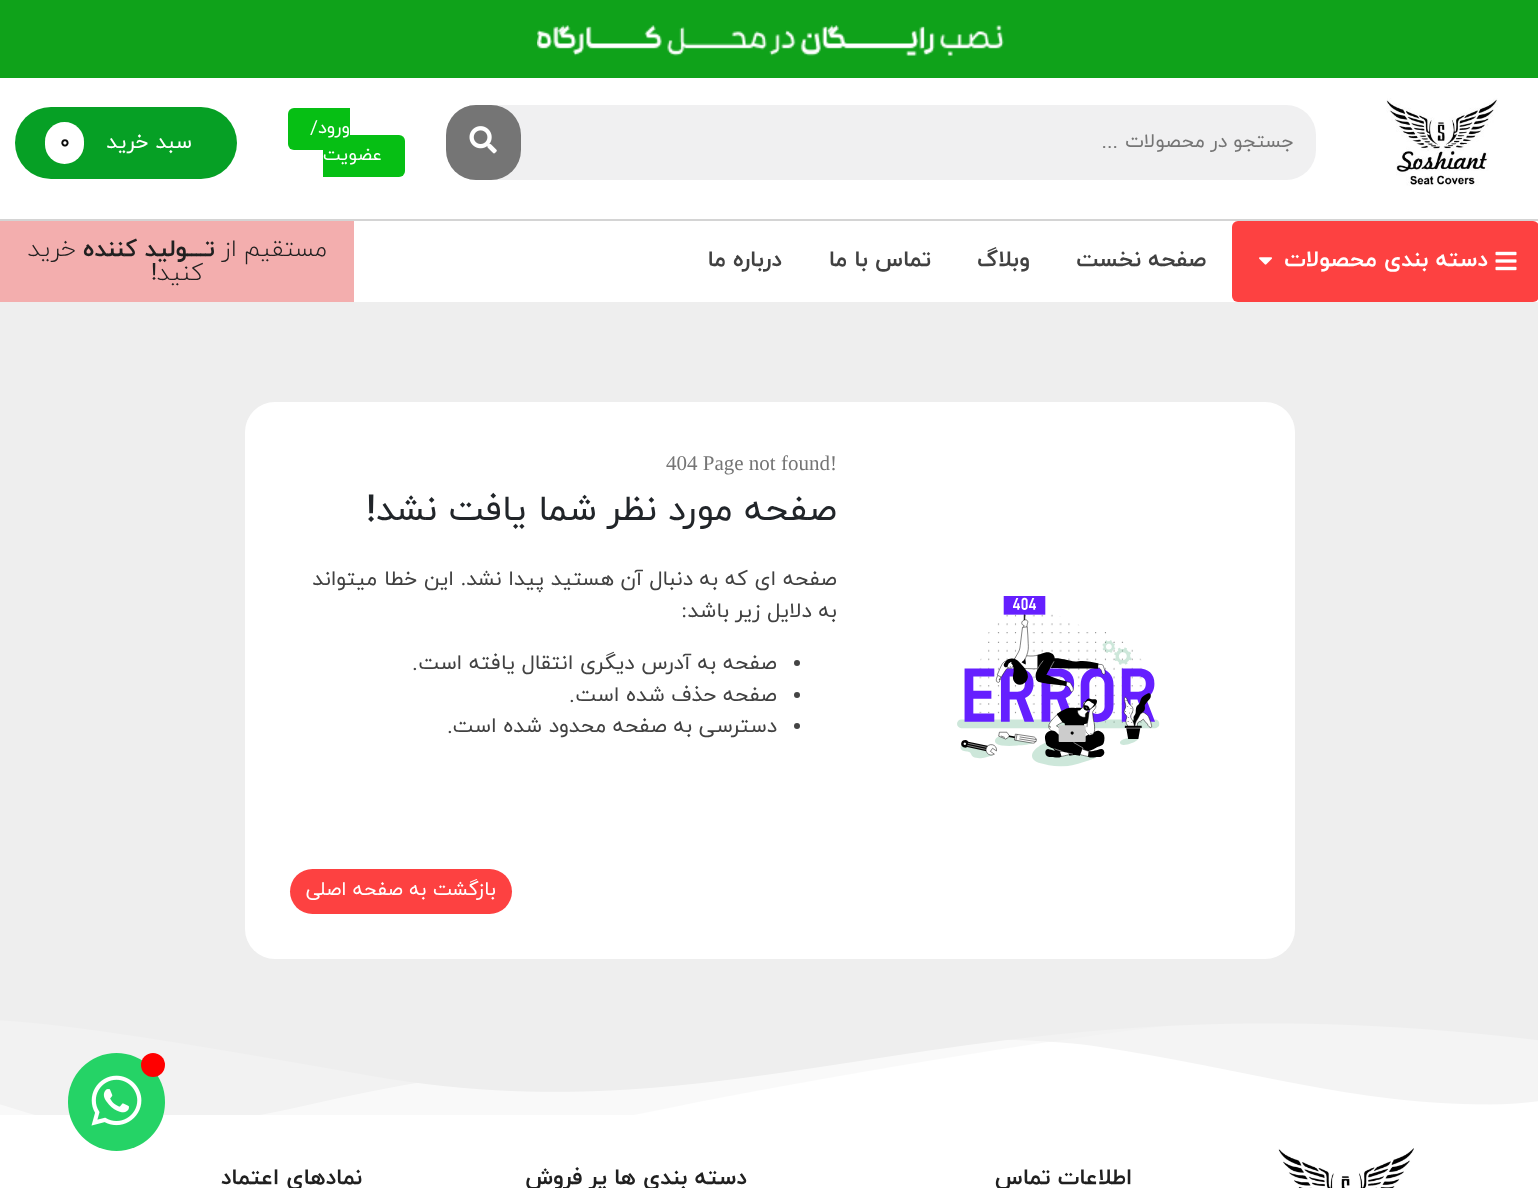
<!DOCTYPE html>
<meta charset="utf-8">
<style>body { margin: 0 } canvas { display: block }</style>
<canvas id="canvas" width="1538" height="1188"></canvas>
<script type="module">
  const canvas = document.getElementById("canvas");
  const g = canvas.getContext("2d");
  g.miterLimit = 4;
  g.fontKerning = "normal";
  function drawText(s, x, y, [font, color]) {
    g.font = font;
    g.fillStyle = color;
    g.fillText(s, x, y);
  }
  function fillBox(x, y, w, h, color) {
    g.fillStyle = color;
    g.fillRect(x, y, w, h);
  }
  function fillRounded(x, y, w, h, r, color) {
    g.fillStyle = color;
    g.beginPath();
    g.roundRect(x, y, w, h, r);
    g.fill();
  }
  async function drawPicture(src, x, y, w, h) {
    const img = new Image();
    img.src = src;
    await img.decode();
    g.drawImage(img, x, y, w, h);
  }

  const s1 = ["19.5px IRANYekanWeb", "#757575"];
  const s2 = ["19.5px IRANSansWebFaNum", "#757575"];
  const s3 = ["18px IRANYekanWeb", "#FFFFFF"];
  const s4 = ["18px IRANSansWebFaNum", "#FFFFFF"];
  const s5 = ["21px IRANYekanWeb", "#FFFFFF"];
  const s6 = ["500 21px IRANSansWebFaNum", "#0A0A0A"];
  const s7 = ["bold 22.5px IRANYekanWeb", "#FFFFFF"];
  const s8 = ["bold 22.5px IRANYekanWeb", "#414141"];
  const s9 = ["300 24px IRANYekanWeb", "#202020"];
  const s10 = ["bold 24px IRANYekanWeb", "#202020"];
  const s11 = ["24px IRANSansWebFaNum", "#202020"];
  const s12 = ["21px Liberation Serif", "#757575"];
  const s13 = ["36px IRANYekanWeb", "#212529"];
  const s14 = ["500 36px IRANSansWebFaNum", "#212529"];
  const s15 = ["21px IRANYekanWeb", "#414141"];
  const s16 = ["21px Liberation Serif", "#414141"];
  const s17 = ["21px IRANSansWebFaNum", "#414141"];
  const s18 = ["19.5px IRANYekanWeb", "#FFFFFF"];
  const s19 = ["bold 22.5px IRANYekanWeb", "#202020"];

  fillBox(0, 0, 1538, 1188, "#EEEEEE");
  fillBox(0, 0, 1538, 78, "#0FA21A");
  await drawPicture("pic1.png", 537, 25, 467, 31);
  fillBox(0, 78, 1538, 141, "#FFFFFF");
  fillBox(0, 219, 1538, 2, "#D4D4D4");
  await drawPicture("pic2.png", 1386, 98, 112, 88);
  fillRounded(446, 105, 870, 75, 30, "#F0F0F1");
  g.direction = "rtl";
  drawText("جستجو در محصولات", 1294, 147, s1);
  drawText("...", 1118, 147, s2);
  fillRounded(446, 105, 75, 75, 30, "#757575");
  await drawPicture("pic3.png", 469, 126, 28, 28);
  g.fillStyle = "#06BF14";
  g.beginPath();
  g.roundRect(288, 108, 62, 42, [6, 0, 0, 6]);
  g.fill();
  g.beginPath();
  g.roundRect(323, 135, 82, 42, [0, 6, 6, 0]);
  g.fill();
  drawText("ورود", 350, 133, s3);
  drawText("/", 318, 133, s4);
  drawText("عضویت", 382, 160, s3);
  fillRounded(15, 107, 222, 72, 36, "#06A025");
  drawText("سبد خرید", 192, 148, s5);
  fillRounded(45, 122, 39, 42, 19.5, "#FFFFFF");
  g.direction = "ltr";
  drawText("0", 60, 147, s6);
  fillBox(354, 221, 1184, 81, "#FFFFFF");
  fillRounded(1232, 221, 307, 81, 6, "#FD4141");
  await drawPicture("pic4.png", 1495, 251, 22, 20);
  g.direction = "rtl";
  drawText("دسته بندی محصولات", 1488, 266, s7);
  await drawPicture("pic5.png", 1259, 257, 13, 8);
  drawText("صفحه نخست", 1206, 266, s8);
  drawText("وبلاگ", 1030, 266, s8);
  drawText("تماس با ما", 931, 266, s8);
  drawText("درباره ما", 782, 266, s8);
  fillBox(0, 221, 354, 81, "#F3AEAE");
  drawText("مستقیم از", 327, 256, s9);
  drawText("تــــولید کننده", 215, 256, s10);
  drawText("خرید", 76, 256, s9);
  drawText("کنید", 203, 280, s9);
  drawText("!", 157, 280, s11);
  fillRounded(245, 402, 1050, 557, 30, "#FFFFFF");
  await drawPicture("pic6.png", 957, 596, 203, 171);
  g.direction = "ltr";
  drawText("404 Page not found!", 666, 470, s12);
  g.direction = "rtl";
  drawText("صفحه مورد نظر شما یافت نشد", 837, 520, s13);
  drawText("!", 376, 520, s14);
  drawText("صفحه ای که به دنبال آن هستید پیدا نشد", 837, 585, s15);
  drawText(".", 466, 585, s16);
  drawText("این خطا میتواند", 454, 585, s15);
  drawText("به دلایل زیر باشد", 837, 617, s15);
  drawText(":", 687, 617, s16);
  g.fillStyle = "#444444";
  g.beginPath();
  g.arc(797, 663, 3, 0, Math.PI * 2);
  g.fill();
  drawText("صفحه به آدرس دیگری انتقال یافته است", 777, 669, s15);
  drawText(".", 418, 669, s17);
  g.fillStyle = "#444444";
  g.beginPath();
  g.arc(797, 695, 3, 0, Math.PI * 2);
  g.fill();
  drawText("صفحه حذف شده است", 777, 701, s15);
  drawText(".", 575, 701, s17);
  g.fillStyle = "#444444";
  g.beginPath();
  g.arc(797, 726, 3, 0, Math.PI * 2);
  g.fill();
  drawText("دسترسی به صفحه محدود شده است", 777, 732, s15);
  drawText(".", 453, 732, s17);
  fillRounded(290, 869, 222, 45, 22.5, "#FD4141");
  drawText("بازگشت به صفحه اصلی", 496, 895, s18);
  fillBox(0, 1020, 1538, 168, "#FFFFFF");
  await drawPicture("pic7.png", 0, 1005, 1538, 110);
  await drawPicture("pic8.png", 1278, 1148, 136, 40);
  drawText("اطلاعات تماس", 1132, 1184, s19);
  drawText("دسته بندی ها پر فروش", 747, 1184, s19);
  drawText("نمادهای اعتماد", 362, 1184, s19);
  fillRounded(68, 1053, 97, 98, 48.5, "#25D366");
  await drawPicture("pic9.png", 91, 1075, 51, 51);
  g.fillStyle = "#FF0000";
  g.beginPath();
  g.arc(153, 1065, 12, 0, Math.PI * 2);
  g.fill();
</script>
